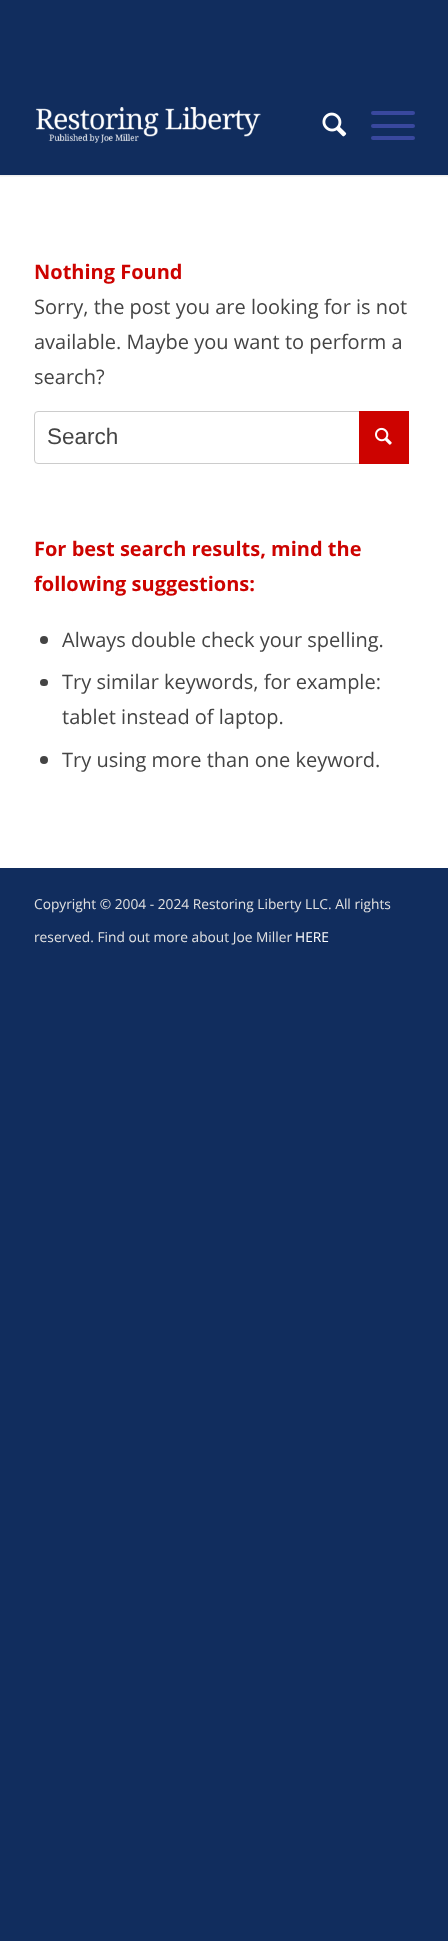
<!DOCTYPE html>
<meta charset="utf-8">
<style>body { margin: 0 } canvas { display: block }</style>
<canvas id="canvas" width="448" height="1941"></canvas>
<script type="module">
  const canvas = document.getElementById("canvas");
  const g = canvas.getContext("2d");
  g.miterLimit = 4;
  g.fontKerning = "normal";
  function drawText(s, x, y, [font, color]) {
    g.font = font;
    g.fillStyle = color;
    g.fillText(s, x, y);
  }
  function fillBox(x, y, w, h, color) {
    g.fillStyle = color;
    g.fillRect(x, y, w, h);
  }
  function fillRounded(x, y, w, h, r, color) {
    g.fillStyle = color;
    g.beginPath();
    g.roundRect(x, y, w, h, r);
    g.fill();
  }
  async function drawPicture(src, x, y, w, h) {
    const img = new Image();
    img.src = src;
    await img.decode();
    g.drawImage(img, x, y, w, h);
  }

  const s1 = ["bold 20px Open Sans", "#CD0300"];
  const s2 = ["20px Open Sans", "#444444"];
  const s3 = ["22.5px Liberation Sans", "#444444"];
  const s4 = ["13.75px Open Sans", "#E1E1E1"];
  const s5 = ["13.75px Open Sans", "#FFFFFF"];

  fillBox(0, 0, 448, 1941, "#112D5E");
  fillBox(0, 175, 448, 693, "#FFFFFF");
  g.save();
  g.beginPath();
  g.rect(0, 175, 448, 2);
  g.clip();
  g.fillStyle = "rgba(0, 0, 0, 0.1)";
  g.filter = "blur(1px)";
  g.beginPath();
  g.rect(-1, -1, 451, 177);
  g.fill();
  g.filter = "none";
  g.restore();
  await drawPicture("pic1.png", 35, 107, 226, 36);
  await drawPicture("pic2.png", 322, 112, 25, 25);
  fillRounded(371, 124, 44, 4, 2, "#39489E");
  fillRounded(371, 111, 44, 4, 2, "#39489E");
  fillRounded(371, 136, 44, 4, 2, "#39489E");
  drawText("Nothing Found", 34, 279, s1);
  drawText("Sorry, the post you are looking for is not", 34, 314, s2);
  drawText("available. Maybe you want to perform a", 34, 349, s2);
  drawText("search?", 34, 384, s2);
  g.beginPath();
  g.roundRect(34.5, 411.5, 374, 52, 3.5);
  g.strokeStyle = "#CCCCCC";
  g.stroke();
  drawText("Search", 47, 444, s3);
  fillBox(359, 411, 50, 53, "#CD0300");
  await drawPicture("pic3.png", 375, 427, 17, 18);
  drawText("For best search results, mind the", 34, 556, s1);
  drawText("following suggestions:", 34, 591, s1);
  g.fillStyle = "#444444";
  g.beginPath();
  g.arc(44, 640, 4, 0, Math.PI * 2);
  g.fill();
  drawText("Always double check your spelling.", 62, 647, s2);
  fillRounded(40, 679, 8, 7, 3.5, "#444444");
  drawText("Try similar keywords, for example:", 62, 689, s2);
  drawText("tablet instead of laptop.", 62, 724, s2);
  g.beginPath();
  g.arc(44, 760, 4, 0, Math.PI * 2);
  g.fill();
  drawText("Try using more than one keyword.", 62, 767, s2);
  drawText("Copyright © 2004 - 2024 Restoring Liberty LLC. All rights", 34, 909, s4);
  drawText("reserved. Find out more about Joe Miller", 34, 942, s4);
  drawText("HERE", 295, 942, s5);
</script>
